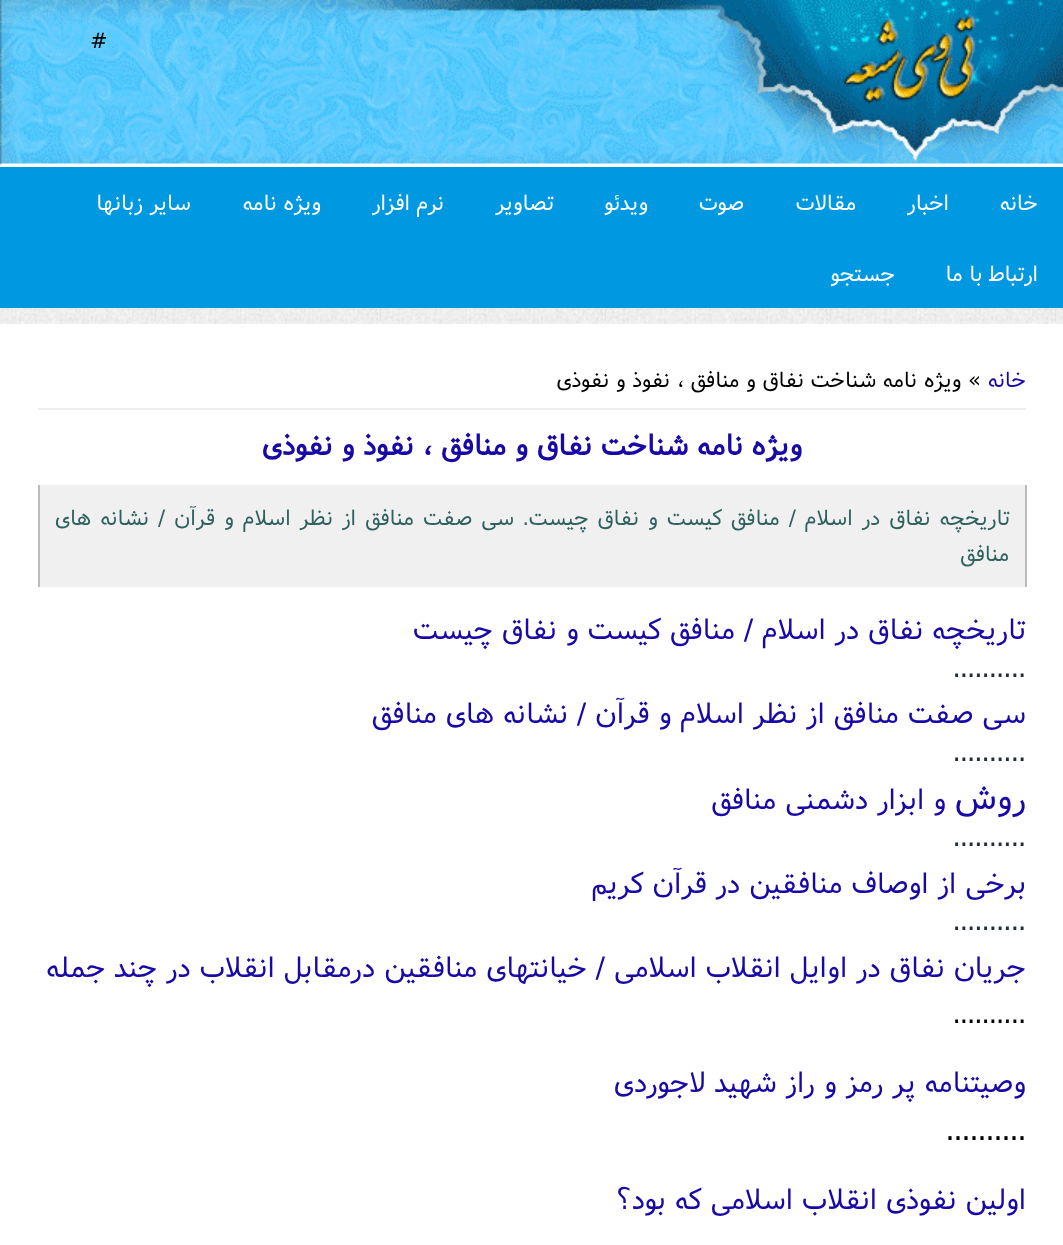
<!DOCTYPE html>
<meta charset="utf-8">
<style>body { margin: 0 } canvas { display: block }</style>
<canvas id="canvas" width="1063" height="1245"></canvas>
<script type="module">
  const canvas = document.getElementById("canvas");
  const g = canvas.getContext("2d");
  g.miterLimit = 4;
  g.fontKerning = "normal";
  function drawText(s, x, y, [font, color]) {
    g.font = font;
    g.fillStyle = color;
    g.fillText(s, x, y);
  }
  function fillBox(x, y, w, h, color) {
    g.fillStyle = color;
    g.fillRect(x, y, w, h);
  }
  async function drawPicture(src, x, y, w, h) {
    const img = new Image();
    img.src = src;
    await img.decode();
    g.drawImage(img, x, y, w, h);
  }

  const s1 = ["22.5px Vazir", "#000000"];
  const s2 = ["22.5px Vazir", "#FFFFFF"];
  const s3 = ["22.5px Vazir", "#1809A6"];
  const s4 = ["bold 30px Vazir", "#1809A6"];
  const s5 = ["22.5px Vazir", "#2F615E"];
  const s6 = ["30px Vazir", "#1809A6"];
  const s7 = ["30px Vazir", "#222E36"];
  const s8 = ["36px Vazir", "#1809A6"];
  const s9 = ["30px Vazir", "#000000"];
  const s10 = ["33px Vazir", "#000000"];

  fillBox(0, 0, 1063, 1245, "#FFFFFF");
  await drawPicture("pic1.png", 0, 308, 1063, 16);
  await drawPicture("pic2.png", 0, 0, 1063, 165);
  drawText("#", 90, 48, s1);
  fillBox(0, 167, 1063, 141, "#0099E1");
  g.direction = "rtl";
  drawText("خانه", 1038, 210, s2);
  drawText("اخبار", 949, 210, s2);
  drawText("مقالات", 856, 210, s2);
  drawText("صوت", 744, 210, s2);
  drawText("ویدئو", 648, 210, s2);
  drawText("تصاویر", 554, 210, s2);
  drawText("نرم افزار", 444, 210, s2);
  drawText("ویژه نامه", 321, 210, s2);
  drawText("سایر زبانها", 191, 210, s2);
  drawText("ارتباط با ما", 1038, 281, s2);
  drawText("جستجو", 895, 281, s2);
  fillBox(38, 408, 988, 2, "#EEEEEE");
  drawText("خانه", 1026, 387, s3);
  drawText("» ویژه نامه شناخت نفاق و منافق ، نفوذ و نفوذی", 981, 387, s1);
  drawText("ویژه نامه شناخت نفاق و منافق ، نفوذ و نفوذی", 802, 455, s4);
  fillBox(40, 485, 985, 102, "#F0F0F0");
  fillBox(1025, 485, 2, 102, "#BBBBBB");
  fillBox(38, 485, 2, 102, "#BBBBBB");
  g.wordSpacing = "2.4px";
  drawText("تاریخچه نفاق در اسلام / منافق کیست و نفاق چیست. سی صفت منافق از نظر اسلام و قرآن / نشانه های", 1010, 525, s5);
  g.wordSpacing = "0px";
  drawText("منافق", 1009, 561, s5);
  drawText("تاریخچه نفاق در اسلام / منافق کیست و نفاق چیست", 1026, 639, s6);
  g.direction = "ltr";
  drawText("..........", 953, 677, s7);
  g.direction = "rtl";
  drawText("سی صفت منافق از نظر اسلام و قرآن / نشانه های منافق", 1026, 723, s6);
  g.direction = "ltr";
  drawText("..........", 953, 761, s7);
  g.direction = "rtl";
  drawText("روش", 1026, 809, s8);
  drawText("و ابزار دشمنی منافق", 946, 809, s6);
  g.direction = "ltr";
  drawText("..........", 953, 846, s7);
  g.direction = "rtl";
  drawText("برخی از اوصاف منافقین در قرآن کریم", 1026, 893, s6);
  g.direction = "ltr";
  drawText("..........", 953, 930, s7);
  g.direction = "rtl";
  drawText("جریان نفاق در اوایل انقلاب اسلامی / خیانتهای منافقین درمقابل انقلاب در چند جمله", 1026, 977, s6);
  g.direction = "ltr";
  drawText("..........", 953, 1023, s9);
  g.direction = "rtl";
  drawText("وصیتنامه پر رمز و راز شهید لاجوردی", 1026, 1092, s6);
  g.direction = "ltr";
  drawText("..........", 946, 1140, s10);
  g.direction = "rtl";
  drawText("اولین نفوذی انقلاب اسلامی که بود؟", 1026, 1209, s6);
</script>
